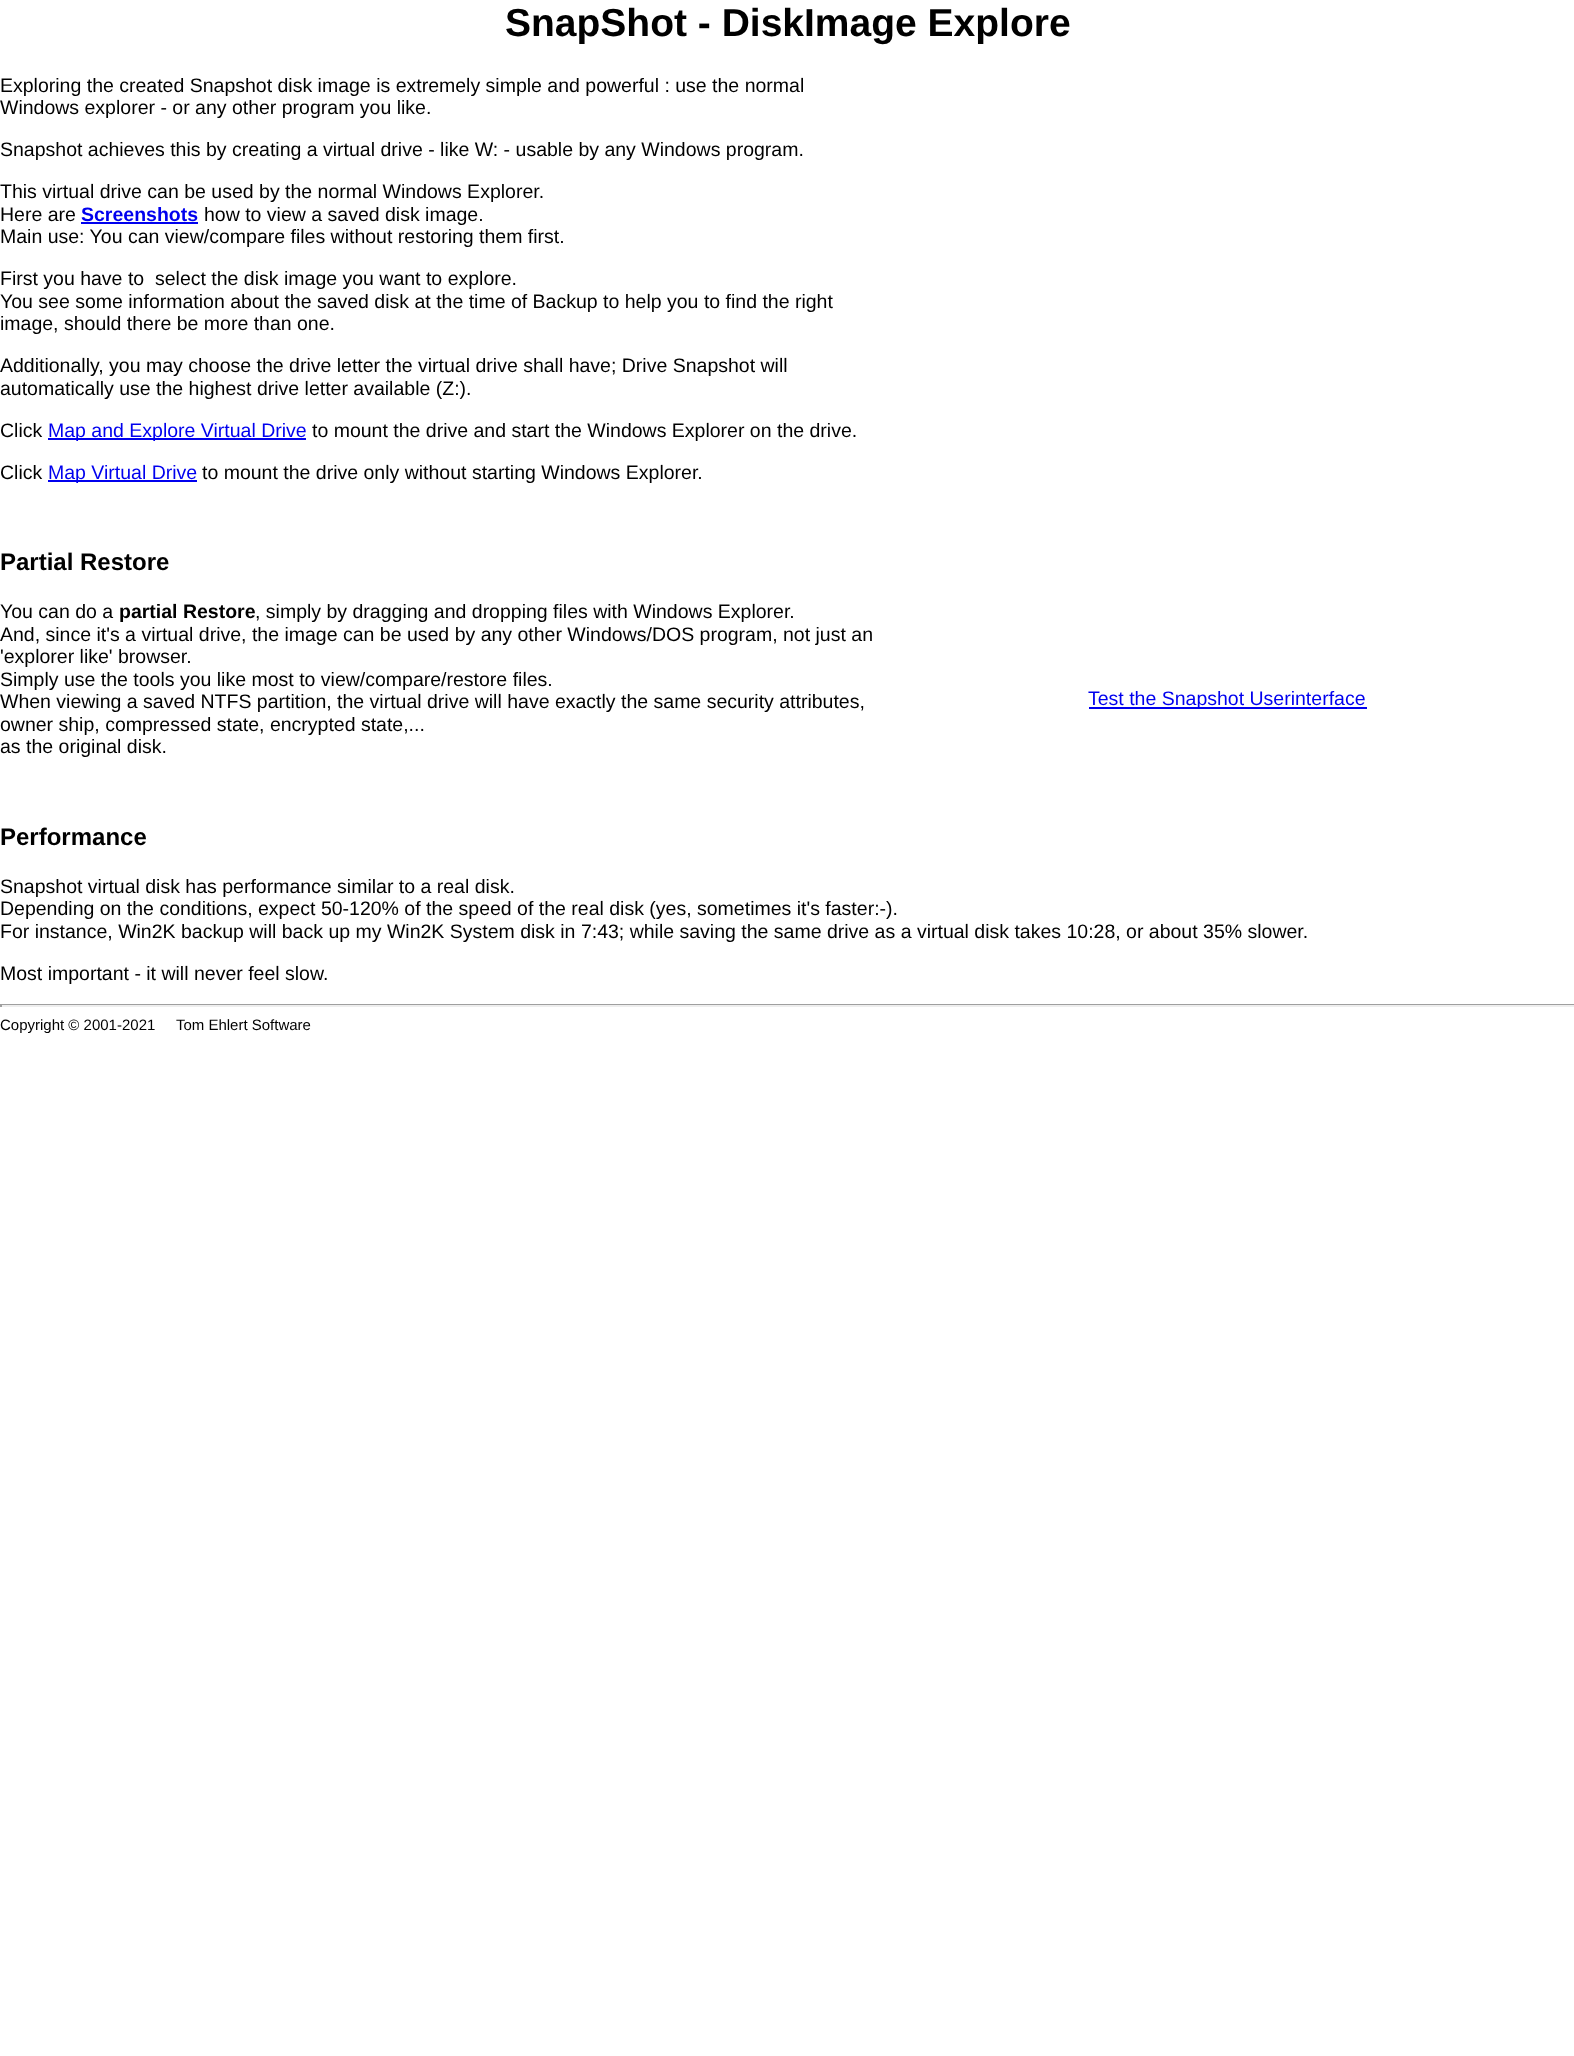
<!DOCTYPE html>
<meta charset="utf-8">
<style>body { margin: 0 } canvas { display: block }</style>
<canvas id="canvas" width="1574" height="2056"></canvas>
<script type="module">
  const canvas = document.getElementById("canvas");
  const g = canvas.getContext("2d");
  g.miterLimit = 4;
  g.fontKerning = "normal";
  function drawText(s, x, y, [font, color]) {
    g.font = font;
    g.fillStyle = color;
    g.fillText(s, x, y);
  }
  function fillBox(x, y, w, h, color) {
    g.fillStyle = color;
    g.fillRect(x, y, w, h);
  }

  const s1 = ["bold 39px Liberation Sans", "#000000"];
  const s2 = ["19.5px Liberation Sans", "#000000"];
  const s3 = ["bold 19.5px Liberation Sans", "#0000EE"];
  const s4 = ["19.5px Liberation Sans", "#0000EE"];
  const s5 = ["bold 24px Liberation Sans", "#000000"];
  const s6 = ["bold 19.5px Liberation Sans", "#000000"];
  const s7 = ["15px Liberation Sans", "#000000"];

  fillBox(0, 0, 1574, 2056, "#FFFFFF");
  drawText("SnapShot - DiskImage Explore", 505, 36, s1);
  drawText("Exploring the created Snapshot disk image is extremely simple and powerful : use the normal", 0, 92, s2);
  drawText("Windows explorer - or any other program you like.", 0, 114, s2);
  drawText("Snapshot achieves this by creating a virtual drive - like W: - usable by any Windows program.", 0, 156, s2);
  drawText("This virtual drive can be used by the normal Windows Explorer.", 0, 198, s2);
  drawText("Here are", 0, 221, s2);
  drawText("Screenshots", 81, 221, s3);
  fillBox(81, 222, 117, 2, "#0000EE");
  drawText("how to view a saved disk image.", 204, 221, s2);
  drawText("Main use: You can view/compare files without restoring them first.", 0, 243, s2);
  drawText("First you have to  select the disk image you want to explore.", 0, 285, s2);
  drawText("You see some information about the saved disk at the time of Backup to help you to find the right", 0, 308, s2);
  drawText("image, should there be more than one.", 0, 330, s2);
  drawText("Additionally, you may choose the drive letter the virtual drive shall have; Drive Snapshot will", 0, 372, s2);
  drawText("automatically use the highest drive letter available (Z:).", 0, 395, s2);
  drawText("Click", 0, 437, s2);
  fillBox(48, 438, 258, 2, "#0000EE");
  drawText("Map and Explore Virtual Drive", 48, 437, s4);
  drawText("to mount the drive and start the Windows Explorer on the drive.", 312, 437, s2);
  drawText("Click", 0, 479, s2);
  fillBox(48, 480, 149, 2, "#0000EE");
  drawText("Map Virtual Drive", 48, 479, s4);
  drawText("to mount the drive only without starting Windows Explorer.", 202, 479, s2);
  drawText("Partial Restore", 0, 570, s5);
  drawText("You can do a", 0, 618, s2);
  drawText("partial Restore", 119, 618, s6);
  drawText(", simply by dragging and dropping files with Windows Explorer.", 255, 618, s2);
  drawText("And, since it's a virtual drive, the image can be used by any other Windows/DOS program, not just an", 0, 641, s2);
  drawText("'explorer like' browser.", 0, 663, s2);
  drawText("Simply use the tools you like most to view/compare/restore files.", 0, 686, s2);
  drawText("When viewing a saved NTFS partition, the virtual drive will have exactly the same security attributes,", 0, 708, s2);
  fillBox(1089, 707, 278, 2, "#0000EE");
  drawText("Test the Snapshot Userinterface", 1088, 705, s4);
  drawText("owner ship, compressed state, encrypted state,...", 0, 731, s2);
  drawText("as the original disk.", 0, 753, s2);
  drawText("Performance", 0, 845, s5);
  drawText("Snapshot virtual disk has performance similar to a real disk.", 0, 893, s2);
  drawText("Depending on the conditions, expect 50-120% of the speed of the real disk (yes, sometimes it's faster:-).", 0, 915, s2);
  drawText("For instance, Win2K backup will back up my Win2K System disk in 7:43; while saving the same drive as a virtual disk takes 10:28, or about 35% slower.", 0, 938, s2);
  drawText("Most important - it will never feel slow.", 0, 980, s2);
  fillBox(0, 1004, 1574, 1, "#9F9F9F");
  fillBox(0, 1005, 1574, 2, "#EEEEEE");
  fillBox(0, 1004, 2, 3, "#9F9F9F");
  drawText("Copyright © 2001-2021     Tom Ehlert Software", 0, 1030, s7);
</script>
